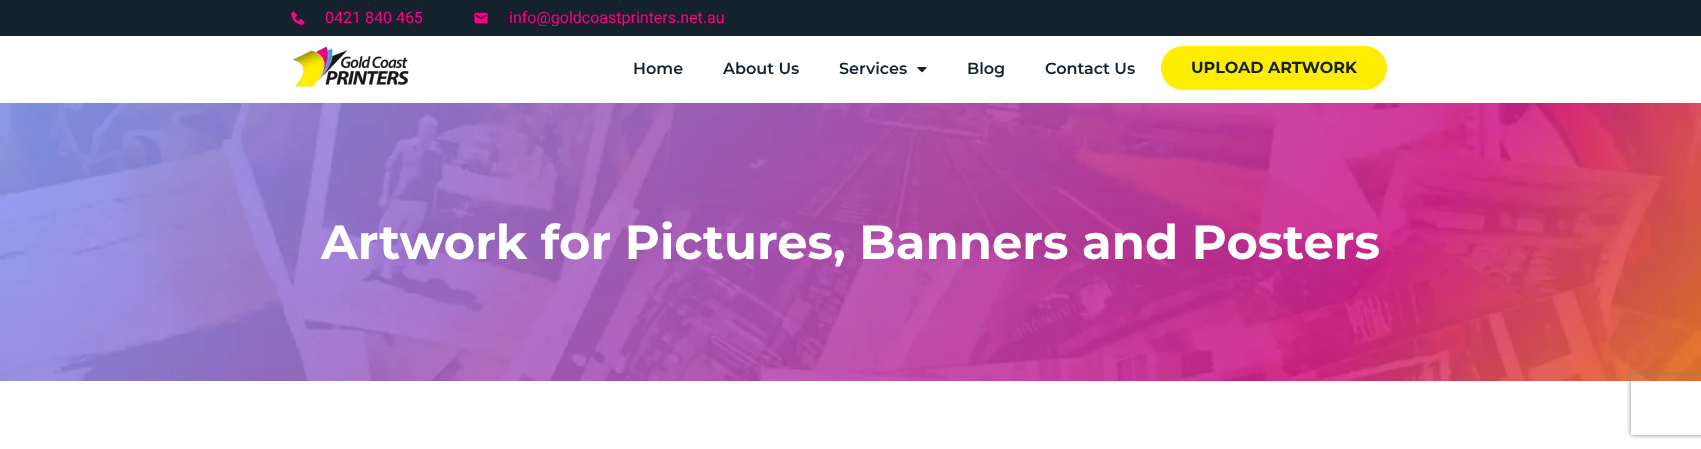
<!DOCTYPE html>
<meta charset="utf-8">
<style>body { margin: 0 } canvas { display: block }</style>
<canvas id="canvas" width="1701" height="449"></canvas>
<script type="module">
  const canvas = document.getElementById("canvas");
  const g = canvas.getContext("2d");
  g.miterLimit = 4;
  g.fontKerning = "normal";
  function drawText(s, x, y, [font, color]) {
    g.font = font;
    g.fillStyle = color;
    g.fillText(s, x, y);
  }
  function fillBox(x, y, w, h, color) {
    g.fillStyle = color;
    g.fillRect(x, y, w, h);
  }
  function fillRounded(x, y, w, h, r, color) {
    g.fillStyle = color;
    g.beginPath();
    g.roundRect(x, y, w, h, r);
    g.fill();
  }
  async function drawPicture(src, x, y, w, h) {
    const img = new Image();
    img.src = src;
    await img.decode();
    g.drawImage(img, x, y, w, h);
  }

  const s1 = ["16px Roboto", "#FF0084"];
  const s2 = ["600 16px Montserrat", "#14222D"];
  const s3 = ["bold 16px Montserrat", "#14222D"];
  const s4 = ["bold 48px Montserrat", "#FFFFFF"];

  fillBox(0, 0, 1701, 449, "#FFFFFF");
  fillBox(0, 0, 1701, 36, "#14222D");
  await drawPicture("pic1.png", 291, 11, 14, 14);
  drawText("0421 840 465", 325, 23, s1);
  await drawPicture("pic2.png", 474, 12, 14, 12);
  g.save();
  g.beginPath();
  g.rect(291, 10, 1120, 16);
  g.clip();
  drawText("info@goldcoastprinters.net.au", 509, 23, s1);
  g.restore();
  await drawPicture("pic3.png", 292, 46, 117, 41);
  drawText("Home", 633, 74, s2);
  drawText("About Us", 723, 74, s2);
  drawText("Services", 839, 74, s2);
  await drawPicture("pic4.png", 917, 67, 10, 6);
  drawText("Blog", 967, 74, s2);
  drawText("Contact Us", 1045, 74, s2);
  fillRounded(1161, 46, 226, 44, 22, "#FFED00");
  drawText("UPLOAD ARTWORK", 1191, 73, s3);
  await drawPicture("pic5.png", 0, 103, 1701, 278);
  drawText("Artwork for Pictures, Banners and Posters", 321, 259, s4);
  g.save();
  g.beginPath();
  g.moveTo(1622, 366);
  g.lineTo(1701, 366);
  g.lineTo(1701, 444);
  g.lineTo(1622, 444);
  g.closePath();
  g.moveTo(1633, 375);
  g.lineTo(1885, 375);
  g.bezierCurveTo(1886, 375, 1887, 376, 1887, 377);
  g.lineTo(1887, 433);
  g.bezierCurveTo(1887, 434, 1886, 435, 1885, 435);
  g.lineTo(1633, 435);
  g.bezierCurveTo(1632, 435, 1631, 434, 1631, 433);
  g.lineTo(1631, 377);
  g.bezierCurveTo(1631, 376, 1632, 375, 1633, 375);
  g.closePath();
  g.clip("evenodd");
  g.fillStyle = "#808080";
  g.filter = "blur(2.5px)";
  g.beginPath();
  g.roundRect(1631, 375, 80, 60, 2);
  g.fill();
  g.filter = "none";
  g.restore();
</script>
